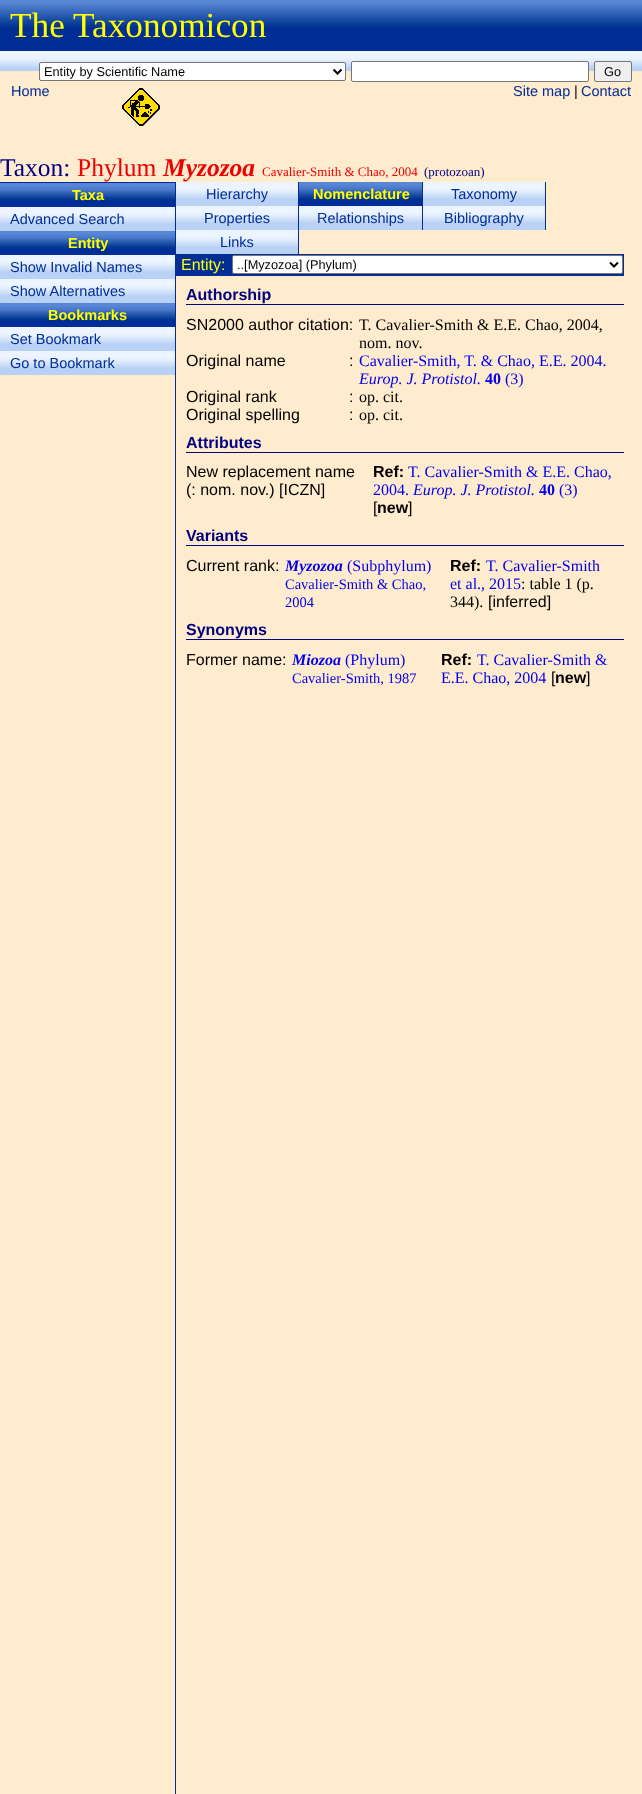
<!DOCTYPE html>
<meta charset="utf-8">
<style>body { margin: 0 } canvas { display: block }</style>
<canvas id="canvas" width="642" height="1794"></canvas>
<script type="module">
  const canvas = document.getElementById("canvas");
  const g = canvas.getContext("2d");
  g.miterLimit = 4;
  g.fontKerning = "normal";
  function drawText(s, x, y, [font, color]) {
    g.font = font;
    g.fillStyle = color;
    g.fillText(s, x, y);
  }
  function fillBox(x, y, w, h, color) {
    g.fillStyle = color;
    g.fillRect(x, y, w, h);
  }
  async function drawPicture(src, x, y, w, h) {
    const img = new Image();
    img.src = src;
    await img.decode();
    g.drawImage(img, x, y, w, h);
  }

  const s1 = ["35.25px Liberation Serif", "#FFFF00"];
  const s2 = ["12.75px Liberation Sans", "#000000"];
  const s3 = ["14.5px Liberation Sans", "#002D96"];
  const s4 = ["14.5px Liberation Sans", "#000000"];
  const s5 = ["25.5px Liberation Serif", "#000080"];
  const s6 = ["25.5px Liberation Serif", "#EE0000"];
  const s7 = ["italic bold 25.5px Liberation Serif", "#EE0000"];
  const s8 = ["13px Liberation Serif", "#EE0000"];
  const s9 = ["13px Liberation Serif", "#000080"];
  const s10 = ["bold 14.5px Liberation Sans", "#FFFF00"];
  const s11 = ["16px Liberation Sans", "#FFFF00"];
  const s12 = ["bold 16px Liberation Sans", "#000080"];
  const s13 = ["16px Liberation Sans", "#000000"];
  const s14 = ["16px Liberation Serif", "#000000"];
  const s15 = ["16px Liberation Serif", "#0000EE"];
  const s16 = ["italic 16px Liberation Serif", "#0000EE"];
  const s17 = ["bold 16px Liberation Serif", "#0000EE"];
  const s18 = ["bold 16px Liberation Sans", "#000000"];
  const s19 = ["italic bold 16px Liberation Serif", "#0000EE"];
  const s20 = ["14.5px Liberation Serif", "#0000EE"];

  fillBox(0, 0, 642, 1794, "#FFEBCD");
  fillBox(0, 27, 642, 24, "#002D96");
  await drawPicture("pic1.png", 0, 0, 642, 27);
  drawText("The Taxonomicon", 10, 37, s1);
  fillBox(0, 68, 642, 3, "#B9D1F4");
  await drawPicture("pic2.png", 0, 51, 642, 17);
  g.fillStyle = "#FFFFFF";
  g.beginPath();
  g.roundRect(39.5, 62.5, 306, 18, 1.5);
  g.fill();
  g.strokeStyle = "#767676";
  g.stroke();
  g.beginPath();
  g.moveTo(333.5, 69.5);
  g.lineTo(337.5, 73.5);
  g.lineTo(341.5, 69.5);
  g.strokeStyle = "#000000";
  g.lineWidth = 2;
  g.stroke();
  drawText("Entity by Scientific Name", 44, 76, s2);
  g.fillStyle = "#FFFFFF";
  g.beginPath();
  g.roundRect(351.5, 61.5, 237, 20, 1.5);
  g.fill();
  g.strokeStyle = "#767676";
  g.lineWidth = 1;
  g.stroke();
  g.fillStyle = "#EFEFEF";
  g.beginPath();
  g.roundRect(594.5, 61.5, 37, 20, 1.5);
  g.fill();
  g.stroke();
  drawText("Go", 604, 76, s2);
  drawText("Home", 11, 96, s3);
  drawText("Site map", 513, 96, s3);
  drawText("|", 574, 96, s4);
  drawText("Contact", 581, 96, s3);
  await drawPicture("pic3.png", 122, 88, 38, 38);
  drawText("Taxon:", 0, 176, s5);
  drawText("Phylum", 77, 176, s6);
  drawText("Myzozoa", 163, 176, s7);
  drawText("Cavalier-Smith & Chao, 2004", 262, 176, s8);
  drawText("(protozoan)", 424, 176, s9);
  fillBox(0, 182, 175, 1, "#002D96");
  fillBox(0, 200, 175, 7, "#002D96");
  await drawPicture("pic4.png", 0, 183, 175, 17);
  drawText("Taxa", 72, 200, s10);
  fillBox(0, 224, 175, 7, "#B9D1F4");
  await drawPicture("pic5.png", 0, 207, 175, 17);
  drawText("Advanced Search", 10, 224, s3);
  fillBox(0, 248, 175, 7, "#002D96");
  await drawPicture("pic4.png", 0, 231, 175, 17);
  drawText("Entity", 68, 248, s10);
  fillBox(0, 272, 175, 7, "#B9D1F4");
  await drawPicture("pic5.png", 0, 255, 175, 17);
  drawText("Show Invalid Names", 10, 272, s3);
  fillBox(0, 296, 175, 7, "#B9D1F4");
  await drawPicture("pic5.png", 0, 279, 175, 17);
  drawText("Show Alternatives", 10, 296, s3);
  fillBox(0, 320, 175, 7, "#002D96");
  await drawPicture("pic4.png", 0, 303, 175, 17);
  drawText("Bookmarks", 48, 320, s10);
  fillBox(0, 344, 175, 7, "#B9D1F4");
  await drawPicture("pic5.png", 0, 327, 175, 17);
  drawText("Set Bookmark", 10, 344, s3);
  fillBox(0, 368, 175, 7, "#B9D1F4");
  await drawPicture("pic5.png", 0, 351, 175, 17);
  drawText("Go to Bookmark", 10, 368, s3);
  fillBox(175, 182, 1, 1612, "#002D96");
  fillBox(298, 182, 1, 72, "#002D96");
  fillBox(176, 199, 122, 7, "#B9D1F4");
  await drawPicture("pic6.png", 176, 182, 122, 17);
  drawText("Hierarchy", 206, 199, s3);
  fillBox(422, 182, 1, 48, "#002D96");
  fillBox(299, 199, 123, 7, "#002D96");
  await drawPicture("pic7.png", 299, 182, 123, 17);
  drawText("Nomenclature", 313, 199, s10);
  fillBox(545, 182, 1, 48, "#002D96");
  fillBox(423, 199, 122, 7, "#B9D1F4");
  await drawPicture("pic6.png", 423, 182, 122, 17);
  drawText("Taxonomy", 451, 199, s3);
  fillBox(176, 223, 122, 7, "#B9D1F4");
  await drawPicture("pic6.png", 176, 206, 122, 17);
  drawText("Properties", 204, 223, s3);
  fillBox(299, 223, 123, 7, "#B9D1F4");
  await drawPicture("pic8.png", 299, 206, 123, 17);
  drawText("Relationships", 317, 223, s3);
  fillBox(423, 223, 122, 7, "#B9D1F4");
  await drawPicture("pic6.png", 423, 206, 122, 17);
  drawText("Bibliography", 444, 223, s3);
  fillBox(176, 247, 122, 7, "#B9D1F4");
  await drawPicture("pic6.png", 176, 230, 122, 17);
  drawText("Links", 220, 247, s3);
  fillBox(176, 254, 448, 22, "#002D96");
  drawText("Entity:", 181, 270, s11);
  g.fillStyle = "#FFFFFF";
  g.beginPath();
  g.roundRect(232.5, 255.5, 390, 18, 1.5);
  g.fill();
  g.stroke();
  g.beginPath();
  g.moveTo(610, 262.5);
  g.lineTo(614, 266.5);
  g.lineTo(618, 262.5);
  g.strokeStyle = "#000000";
  g.lineWidth = 2;
  g.stroke();
  drawText("..[Myzozoa] (Phylum)", 237, 269, s2);
  fillBox(186, 304, 438, 1, "#000080");
  drawText("Authorship", 186, 300, s12);
  drawText("SN2000 author citation:", 186, 330, s13);
  drawText("T. Cavalier-Smith & E.E. Chao, 2004,", 359, 330, s14);
  drawText("nom. nov.", 359, 348, s14);
  drawText("Original name", 186, 366, s13);
  drawText(":", 349, 366, s13);
  drawText("Cavalier-Smith, T. & Chao, E.E. 2004.", 359, 366, s15);
  drawText("Europ. J. Protistol.", 359, 384, s16);
  drawText("40", 485, 384, s17);
  drawText("(3)", 505, 384, s15);
  drawText("Original rank", 186, 402, s13);
  drawText(":", 349, 402, s13);
  drawText("op. cit.", 359, 402, s14);
  drawText("Original spelling", 186, 420, s13);
  drawText(":", 349, 420, s13);
  drawText("op. cit.", 359, 420, s14);
  fillBox(186, 452, 438, 1, "#000080");
  drawText("Attributes", 186, 448, s12);
  drawText("New replacement name", 186, 477, s13);
  drawText("(: nom. nov.) [ICZN]", 186, 495, s13);
  drawText("Ref:", 373, 477, s18);
  drawText("T. Cavalier-Smith & E.E. Chao,", 408, 477, s15);
  drawText("2004.", 373, 495, s15);
  drawText("Europ. J. Protistol.", 413, 495, s16);
  drawText("40", 539, 495, s17);
  drawText("(3)", 559, 495, s15);
  drawText("[", 373, 513, s13);
  drawText("new", 377, 513, s18);
  drawText("]", 408, 513, s13);
  fillBox(186, 545, 438, 1, "#000080");
  drawText("Variants", 186, 541, s12);
  drawText("Current rank:", 186, 571, s13);
  drawText("Myzozoa", 285, 571, s19);
  drawText("(Subphylum)", 347, 571, s15);
  drawText("Cavalier-Smith & Chao,", 285, 589, s20);
  drawText("2004", 285, 607, s20);
  drawText("Ref:", 450, 571, s18);
  drawText("T. Cavalier-Smith", 486, 571, s15);
  drawText("et al., 2015", 450, 589, s15);
  drawText(": table 1 (p.", 521, 589, s14);
  drawText("344).", 450, 607, s14);
  drawText("[inferred]", 488, 607, s13);
  fillBox(186, 639, 438, 1, "#000080");
  drawText("Synonyms", 186, 635, s12);
  drawText("Former name:", 186, 665, s13);
  drawText("Miozoa", 292, 665, s19);
  drawText("(Phylum)", 345, 665, s15);
  drawText("Cavalier-Smith, 1987", 292, 683, s20);
  drawText("Ref:", 441, 665, s18);
  drawText("T. Cavalier-Smith &", 477, 665, s15);
  drawText("E.E. Chao, 2004", 441, 683, s15);
  drawText("[", 551, 683, s13);
  drawText("new", 555, 683, s18);
  drawText("]", 586, 683, s13);
</script>
